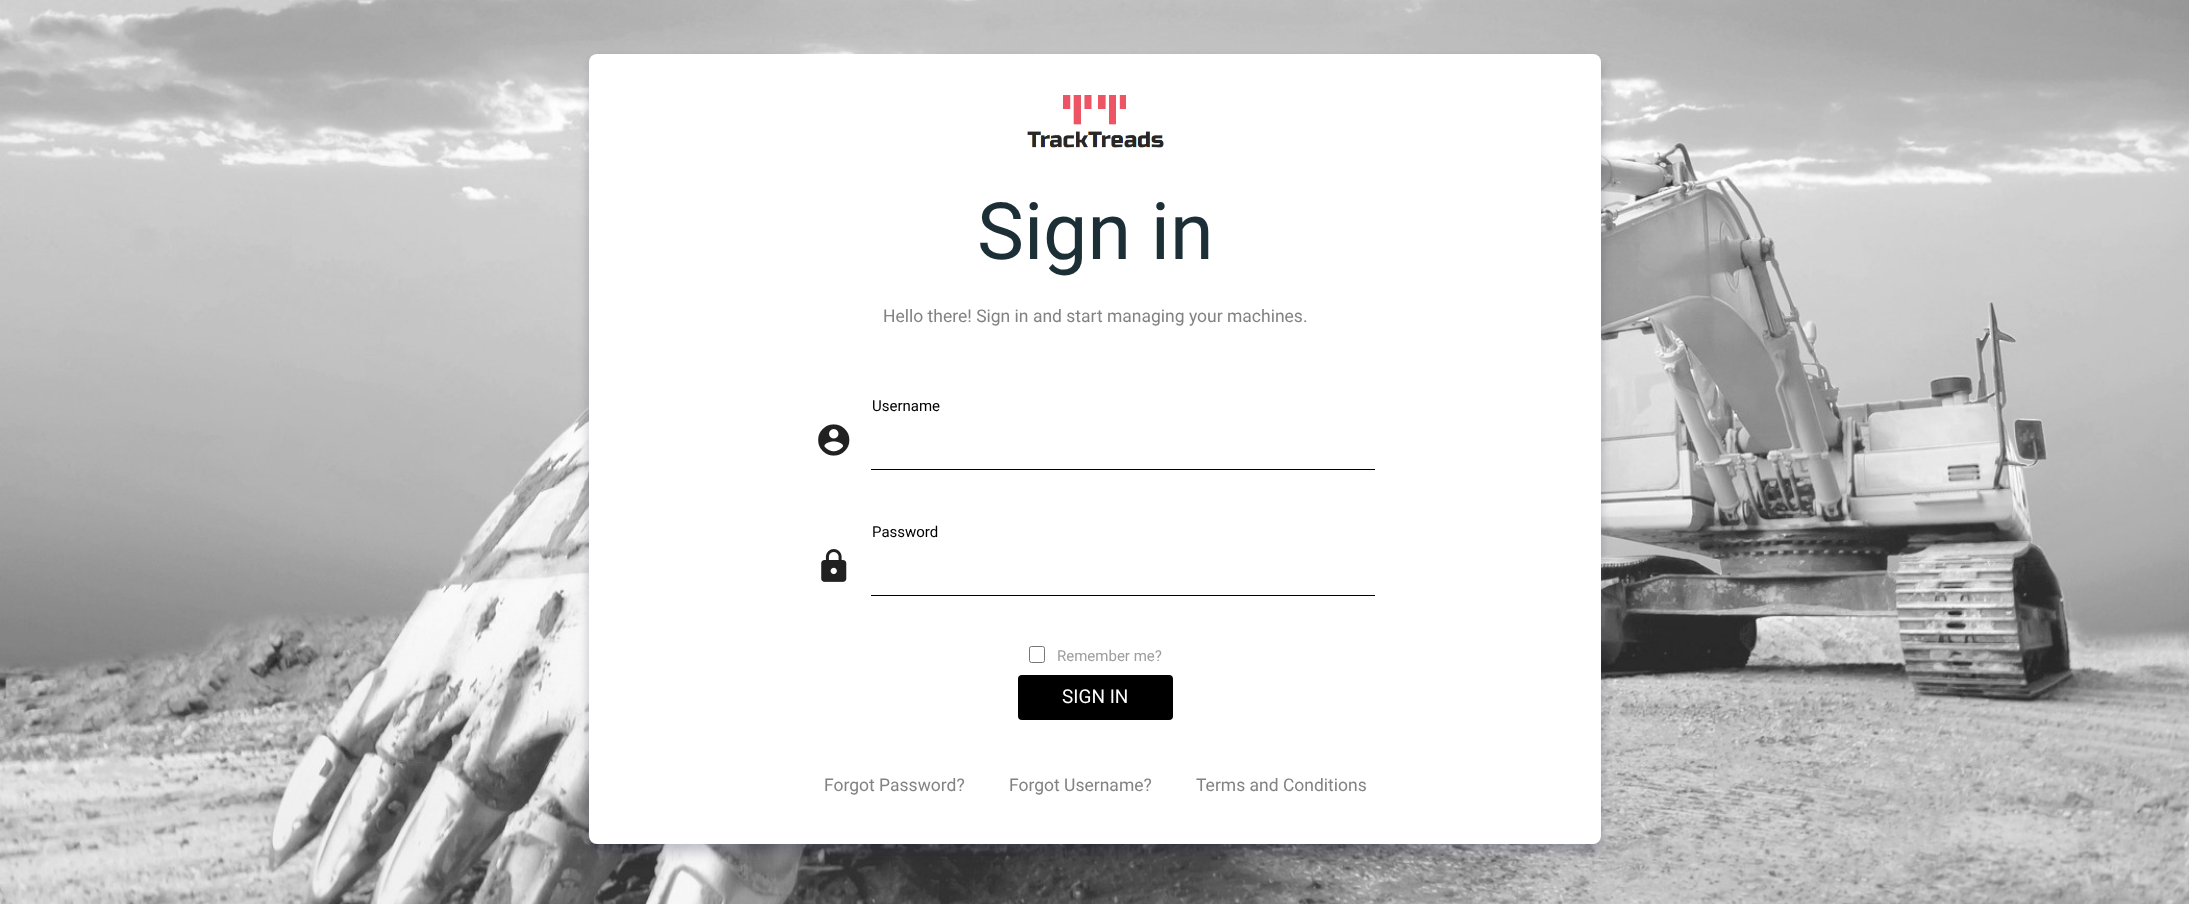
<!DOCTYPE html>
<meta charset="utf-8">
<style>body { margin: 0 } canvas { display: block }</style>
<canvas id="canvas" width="2189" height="904"></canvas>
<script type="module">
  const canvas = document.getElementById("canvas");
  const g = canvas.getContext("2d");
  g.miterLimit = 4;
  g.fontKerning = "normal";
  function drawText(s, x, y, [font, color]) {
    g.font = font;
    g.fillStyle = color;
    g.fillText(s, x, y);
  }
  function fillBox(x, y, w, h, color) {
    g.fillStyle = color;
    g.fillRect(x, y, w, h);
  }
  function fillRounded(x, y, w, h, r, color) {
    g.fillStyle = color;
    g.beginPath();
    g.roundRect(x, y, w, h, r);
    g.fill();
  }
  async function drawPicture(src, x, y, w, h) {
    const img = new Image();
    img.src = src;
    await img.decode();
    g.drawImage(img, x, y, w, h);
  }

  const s1 = ["79px Roboto", "#1D2F36"];
  const s2 = ["17.5px Roboto", "#828282"];
  const s3 = ["15px Roboto", "#000000"];
  const s4 = ["15px Roboto", "#9E9E9E"];
  const s5 = ["19px Roboto", "#FFFFFF"];

  fillBox(0, 0, 2189, 904, "#FFFFFF");
  await drawPicture("pic1.png", 0, 0, 2189, 904);
  g.fillStyle = "rgba(0, 0, 0, 0.07)";
  g.filter = "blur(4px)";
  g.beginPath();
  g.roundRect(589, 58, 1012, 790, 8);
  g.fill();
  g.filter = "none";
  g.fillStyle = "rgba(50, 50, 93, 0.2)";
  g.filter = "blur(6px)";
  g.beginPath();
  g.roundRect(589, 63, 1012, 790, 8);
  g.fill();
  g.filter = "none";
  fillRounded(589, 54, 1012, 790, 8, "#FFFFFF");
  await drawPicture("pic2.png", 1027, 95, 137, 53);
  drawText("Sign in", 977, 259, s1);
  drawText("Hello there! Sign in and start managing your machines.", 883, 322, s2);
  drawText("Username", 872, 411, s3);
  await drawPicture("pic3.png", 818, 424, 32, 32);
  fillBox(871, 469, 504, 1, "#000000");
  drawText("Password", 872, 537, s3);
  await drawPicture("pic4.png", 821, 549, 26, 33);
  fillBox(871, 595, 504, 1, "#000000");
  g.beginPath();
  g.roundRect(1029.5, 646.5, 15, 16, 2);
  g.strokeStyle = "#767676";
  g.stroke();
  drawText("Remember me?", 1057, 661, s4);
  fillRounded(1018, 675, 155, 45, 4, "#000000");
  drawText("SIGN IN", 1062, 703, s5);
  drawText("Forgot Password?", 824, 791, s2);
  drawText("Forgot Username?", 1009, 791, s2);
  drawText("Terms and Conditions", 1196, 791, s2);
</script>
